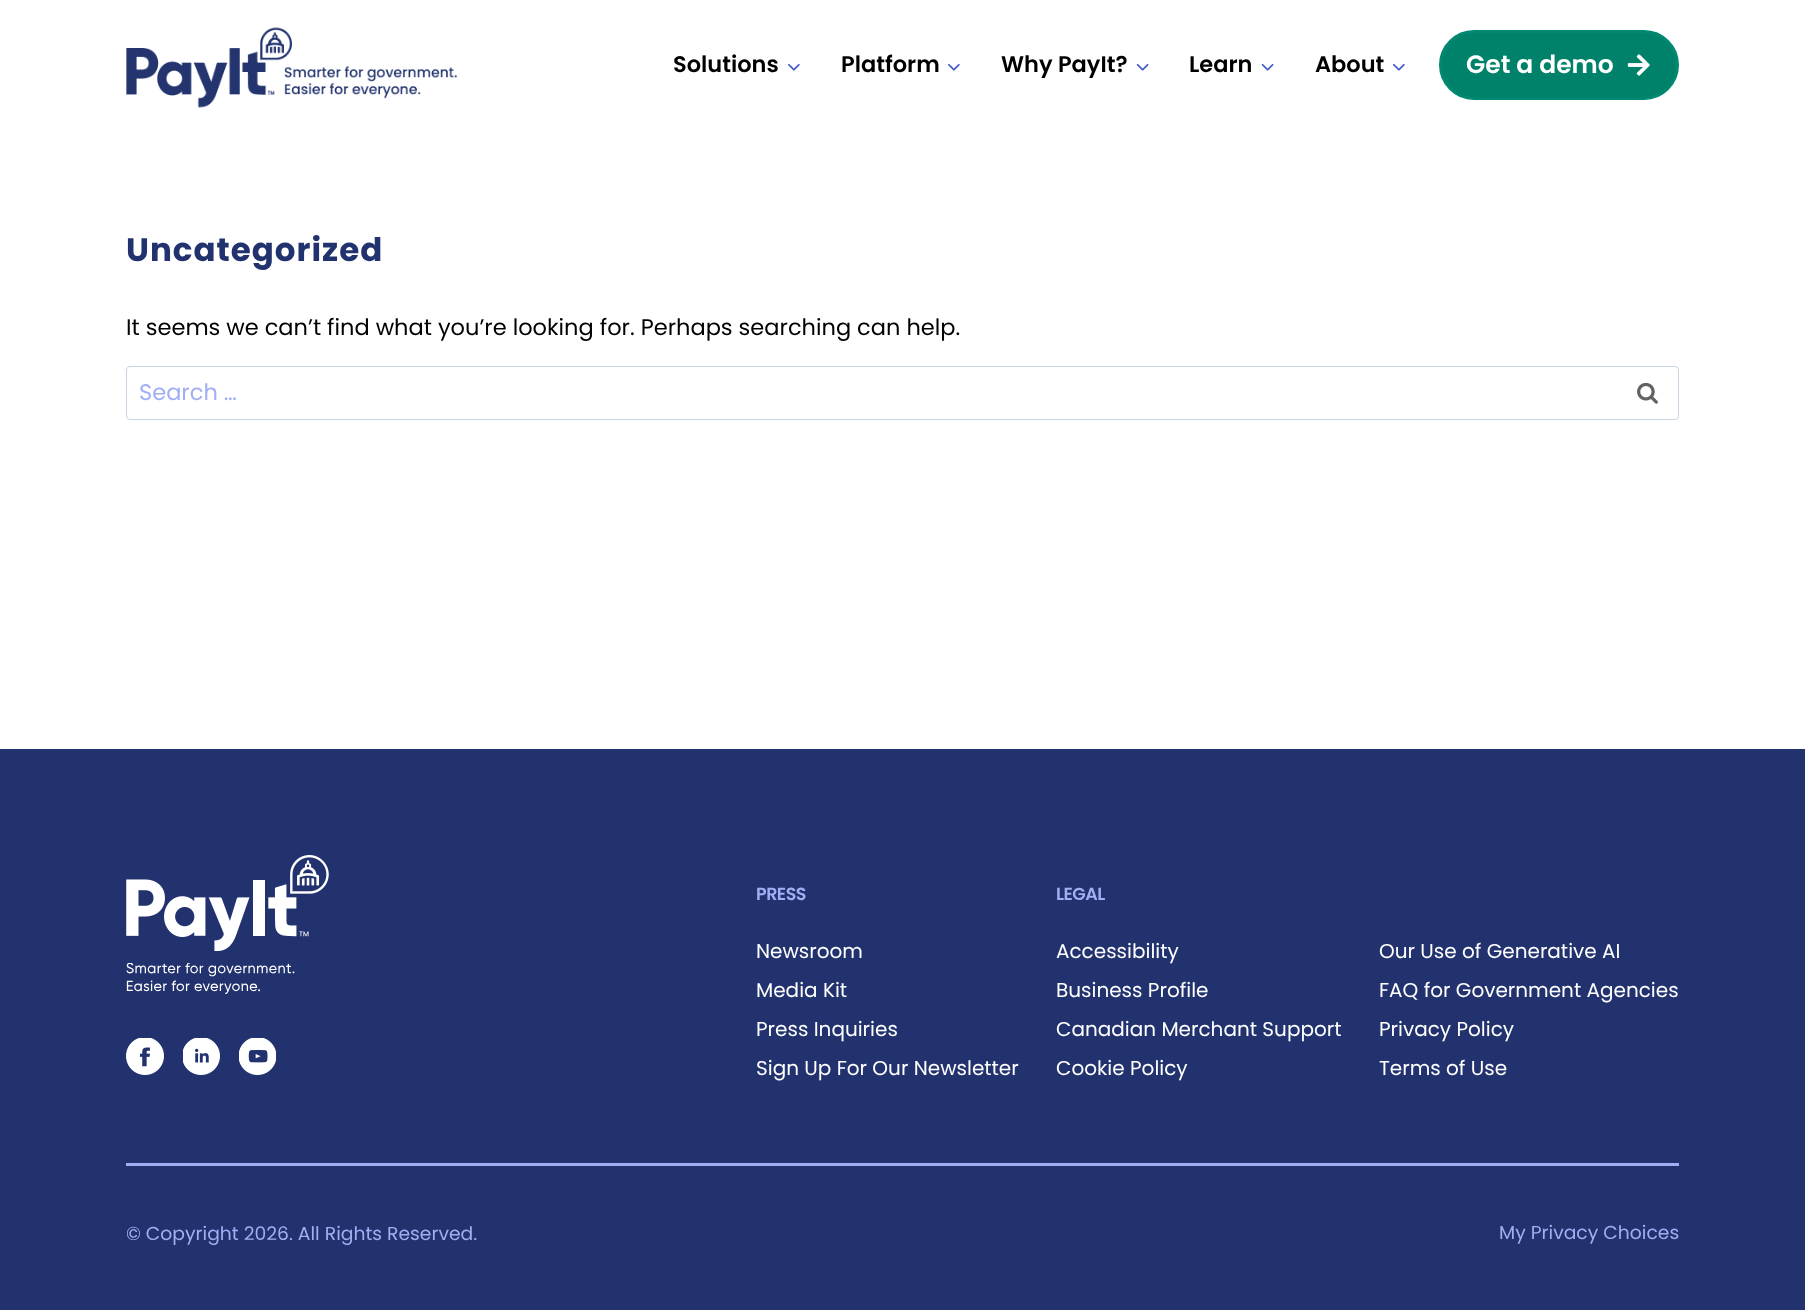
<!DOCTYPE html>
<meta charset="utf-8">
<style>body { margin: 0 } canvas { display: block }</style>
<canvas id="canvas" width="1805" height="1310"></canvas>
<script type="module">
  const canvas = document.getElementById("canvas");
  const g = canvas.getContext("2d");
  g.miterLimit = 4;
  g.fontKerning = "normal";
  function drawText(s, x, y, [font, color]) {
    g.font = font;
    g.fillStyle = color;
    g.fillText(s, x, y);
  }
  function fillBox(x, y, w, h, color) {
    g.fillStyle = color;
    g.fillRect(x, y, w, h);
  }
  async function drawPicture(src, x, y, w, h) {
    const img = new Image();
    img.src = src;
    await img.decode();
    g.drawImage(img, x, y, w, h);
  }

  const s1 = ["600 22.5px Poppins", "#000000"];
  const s2 = ["600 25px Poppins", "#FFFFFF"];
  const s3 = ["bold 32.5px Poppins", "#22326E"];
  const s4 = ["22.5px Poppins", "#000000"];
  const s5 = ["22.5px Poppins", "#A0AEF4"];
  const s6 = ["600 17.5px Poppins", "#A0AEF4"];
  const s7 = ["20px Poppins", "#FFFFFF"];
  const s8 = ["18.75px Poppins", "#A0AEF4"];

  fillBox(0, 0, 1805, 1310, "#FFFFFF");
  await drawPicture("pic1.png", 126, 27, 331, 81);
  drawText("Solutions", 673, 72, s1);
  await drawPicture("pic2.png", 788, 63, 12, 8);
  drawText("Platform", 841, 72, s1);
  await drawPicture("pic2.png", 948, 63, 12, 8);
  drawText("Why PayIt?", 1001, 72, s1);
  await drawPicture("pic3.png", 1136, 63, 13, 8);
  drawText("Learn", 1189, 72, s1);
  await drawPicture("pic3.png", 1261, 63, 13, 8);
  drawText("About", 1315, 72, s1);
  await drawPicture("pic2.png", 1393, 63, 12, 8);
  g.fillStyle = "#00826A";
  g.beginPath();
  g.roundRect(1440.5, 31.5, 237, 67, 33.5);
  g.fill();
  g.strokeStyle = "#008970";
  g.lineWidth = 3;
  g.stroke();
  drawText("Get a demo", 1466, 73, s2);
  await drawPicture("pic4.png", 1627, 54, 23, 22);
  g.letterSpacing = "1px";
  drawText("Uncategorized", 126, 261, s3);
  g.letterSpacing = "0px";
  drawText("It seems we can’t find what you’re looking for. Perhaps searching can help.", 126, 335, s4);
  g.beginPath();
  g.roundRect(126.5, 366.5, 1552, 53, 3.5);
  g.strokeStyle = "#CBD5E0";
  g.lineWidth = 1;
  g.stroke();
  drawText("Search …", 139, 400, s5);
  await drawPicture("pic5.png", 1637, 382, 21, 22);
  fillBox(0, 749, 1805, 561, "#22326E");
  await drawPicture("pic6.png", 126, 855, 203, 96);
  await drawPicture("pic7.png", 126, 963, 169, 31);
  await drawPicture("pic8.png", 126, 1038, 38, 37);
  await drawPicture("pic9.png", 183, 1038, 37, 37);
  await drawPicture("pic10.png", 239, 1038, 37, 37);
  g.letterSpacing = "-0.5px";
  drawText("PRESS", 756, 900, s6);
  g.letterSpacing = "0px";
  drawText("Newsroom", 756, 958, s7);
  drawText("Media Kit", 756, 997, s7);
  drawText("Press Inquiries", 756, 1036, s7);
  drawText("Sign Up For Our Newsletter", 756, 1075, s7);
  g.letterSpacing = "-0.5px";
  drawText("LEGAL", 1056, 900, s6);
  g.letterSpacing = "0px";
  drawText("Accessibility", 1056, 958, s7);
  drawText("Business Profile", 1056, 997, s7);
  drawText("Canadian Merchant Support", 1056, 1036, s7);
  drawText("Cookie Policy", 1056, 1075, s7);
  drawText("Our Use of Generative AI", 1379, 958, s7);
  drawText("FAQ for Government Agencies", 1379, 997, s7);
  drawText("Privacy Policy", 1379, 1036, s7);
  drawText("Terms of Use", 1379, 1075, s7);
  fillBox(126, 1163, 1553, 3, "#A0AEF4");
  drawText("© Copyright 2026. All Rights Reserved.", 126, 1240, s8);
  drawText("My Privacy Choices", 1499, 1239, s8);
</script>
